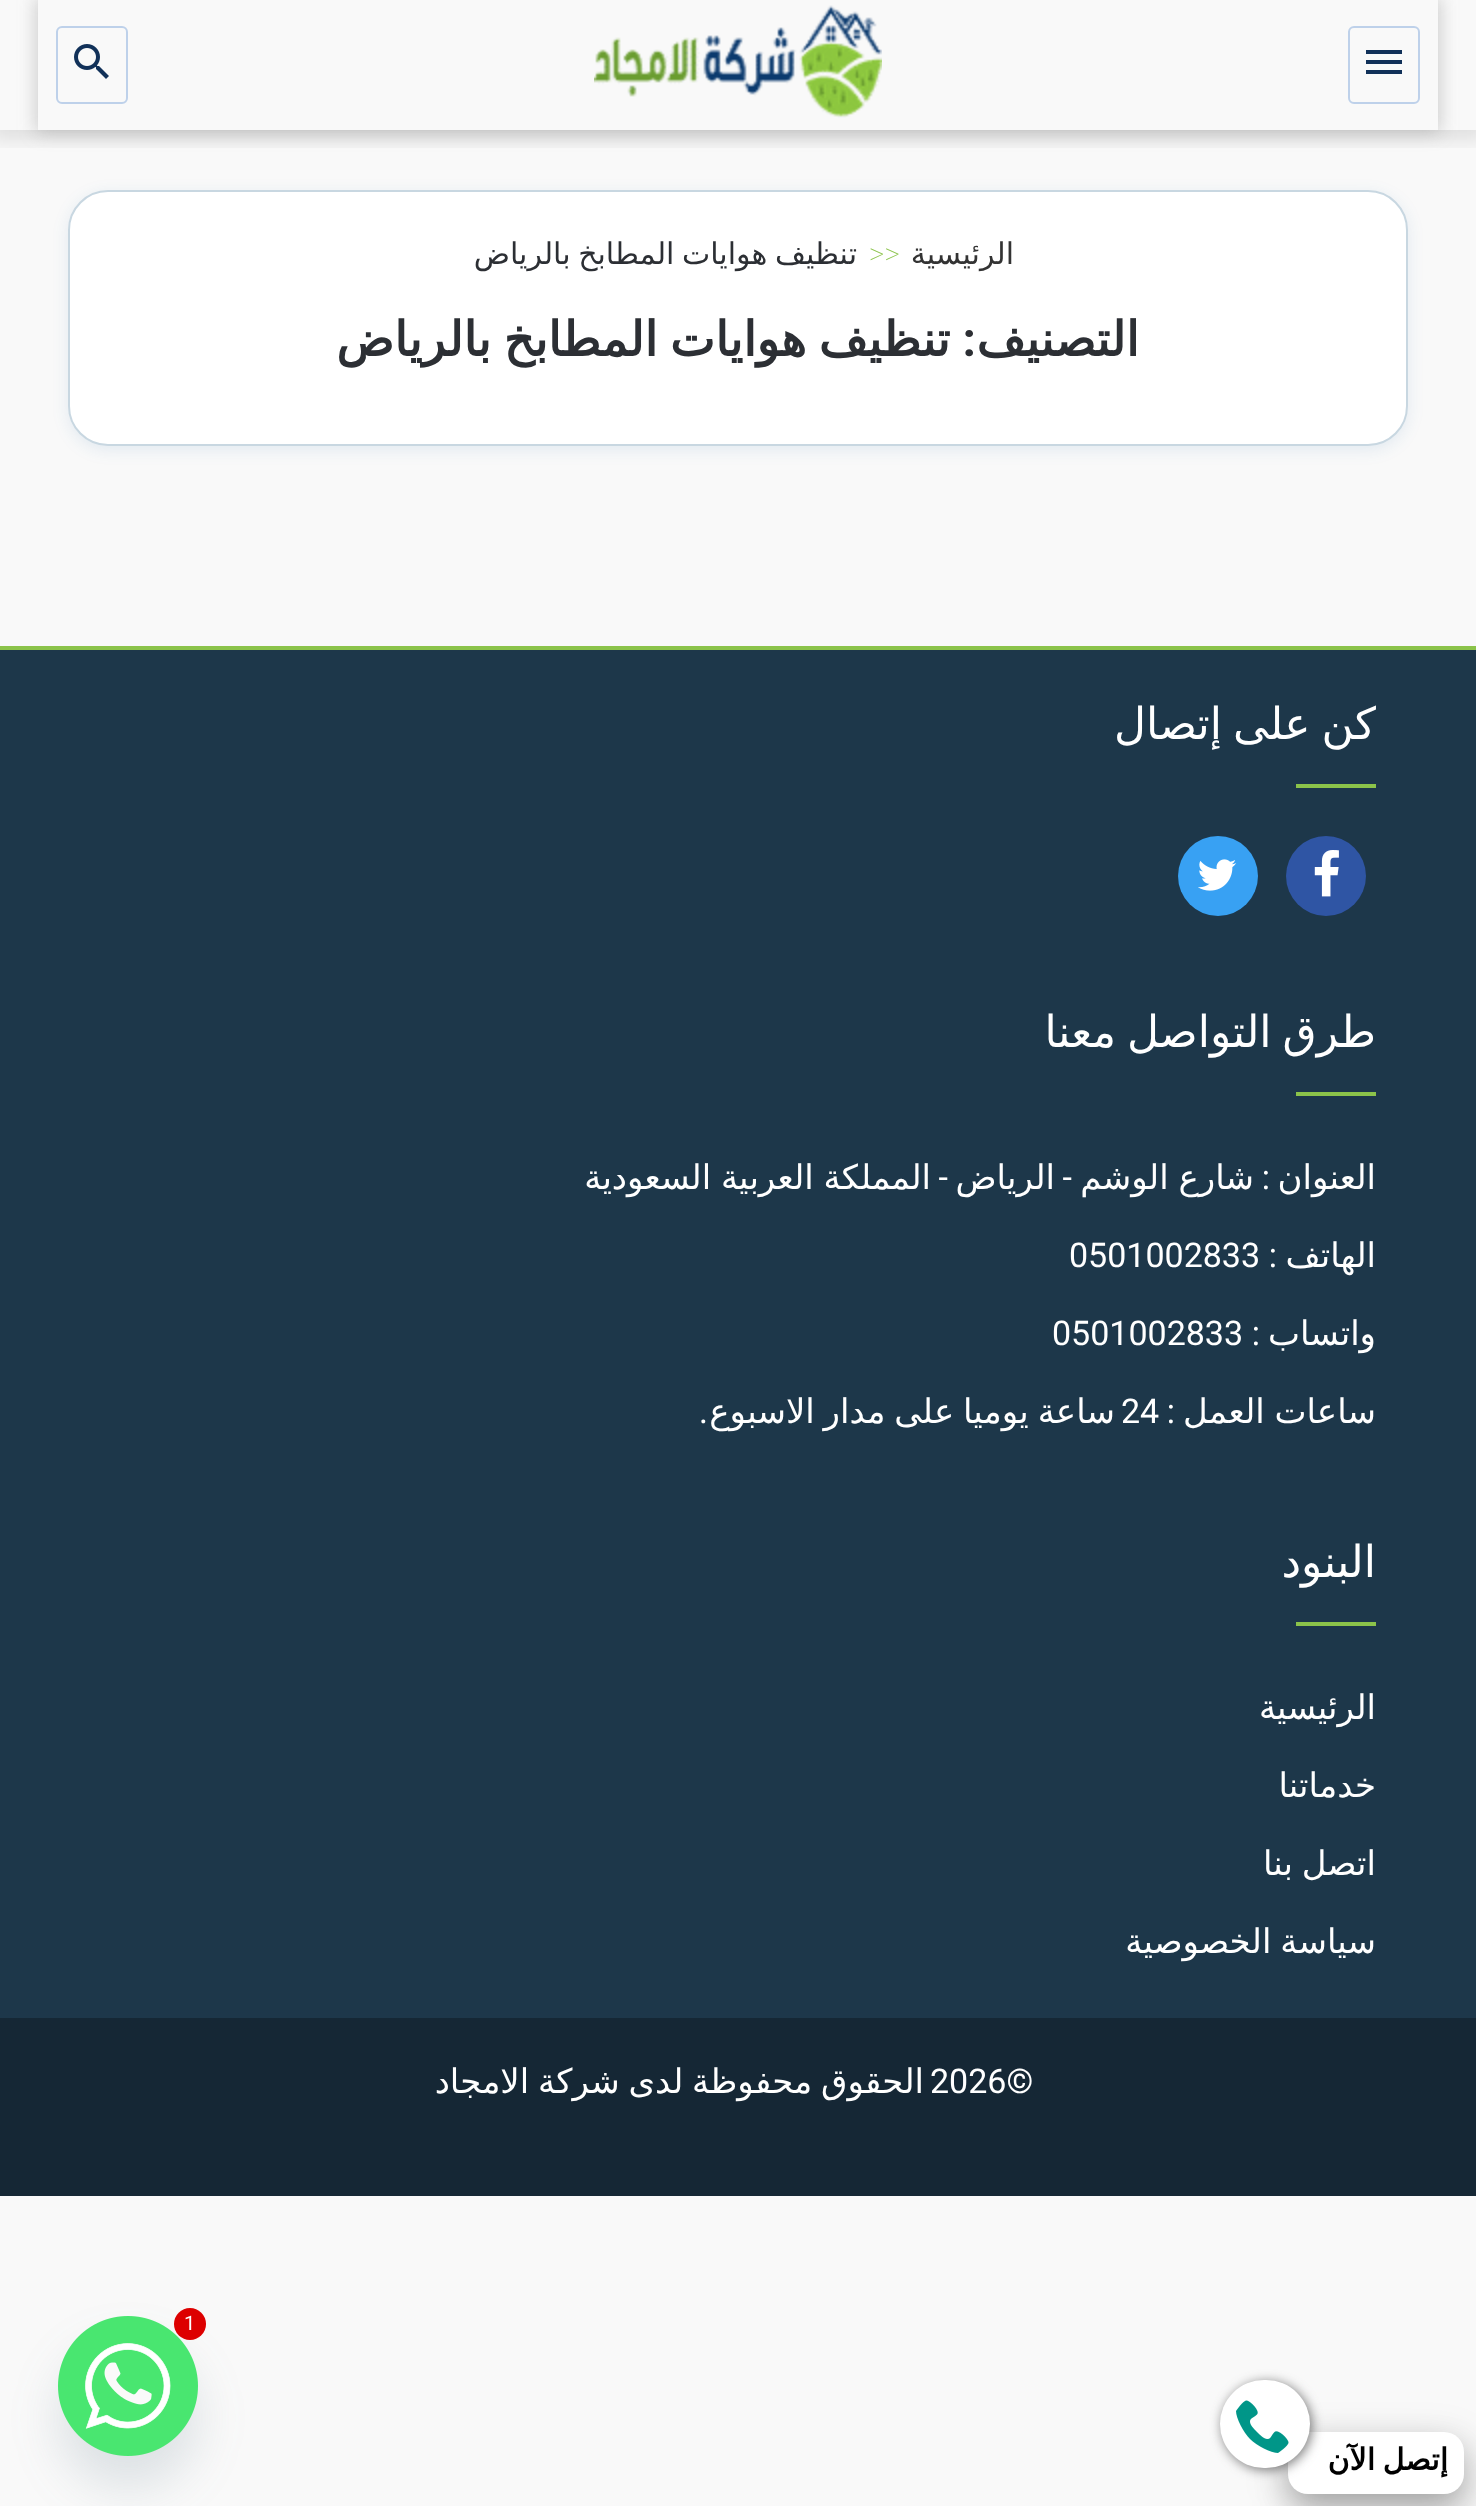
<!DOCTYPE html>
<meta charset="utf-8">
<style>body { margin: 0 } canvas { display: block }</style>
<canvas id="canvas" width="1476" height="2506"></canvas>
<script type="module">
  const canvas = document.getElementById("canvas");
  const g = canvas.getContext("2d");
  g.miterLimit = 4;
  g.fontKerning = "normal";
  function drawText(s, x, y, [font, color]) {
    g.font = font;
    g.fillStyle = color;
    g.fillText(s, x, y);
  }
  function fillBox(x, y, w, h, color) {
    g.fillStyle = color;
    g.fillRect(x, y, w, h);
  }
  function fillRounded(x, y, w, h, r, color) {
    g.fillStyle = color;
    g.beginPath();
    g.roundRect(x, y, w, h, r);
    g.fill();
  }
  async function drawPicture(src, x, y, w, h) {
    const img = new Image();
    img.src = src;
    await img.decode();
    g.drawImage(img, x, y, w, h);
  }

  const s1 = ["30px DejaVu Sans", "#333333"];
  const s2 = ["100 30px Roboto", "#8BC34A"];
  const s3 = ["30px DejaVu Sans", "#2C2F34"];
  const s4 = ["bold 48px DejaVu Sans", "#2C2F34"];
  const s5 = ["bold 48px Roboto", "#2C2F34"];
  const s6 = ["44px DejaVu Sans", "#FFFFFF"];
  const s7 = ["34px DejaVu Sans", "#FFFFFF"];
  const s8 = ["34px Roboto", "#FFFFFF"];
  const s9 = ["bold 30px DejaVu Sans", "#000000"];
  const s10 = ["20px Roboto", "#FFFFFF"];

  fillBox(0, 0, 1476, 2506, "#F9F9F9");
  g.save();
  g.beginPath();
  g.rect(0, 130, 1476, 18);
  g.clip();
  g.fillStyle = "rgba(0, 0, 0, 0.1)";
  g.filter = "blur(10px)";
  g.beginPath();
  g.rect(-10, -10, 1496, 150);
  g.fill();
  g.filter = "none";
  g.restore();
  g.save();
  g.beginPath();
  g.moveTo(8, 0);
  g.lineTo(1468, 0);
  g.lineTo(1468, 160);
  g.lineTo(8, 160);
  g.closePath();
  g.moveTo(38, 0);
  g.lineTo(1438, 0);
  g.lineTo(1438, 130);
  g.lineTo(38, 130);
  g.closePath();
  g.clip("evenodd");
  g.fillStyle = "rgba(100, 100, 100, 0.3)";
  g.filter = "blur(9px)";
  g.beginPath();
  g.rect(36, -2, 1404, 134);
  g.fill();
  g.filter = "none";
  g.restore();
  g.beginPath();
  g.roundRect(1349, 27, 70, 76, 5);
  g.strokeStyle = "#BED1EA";
  g.lineWidth = 2;
  g.stroke();
  g.fillStyle = "#113159";
  g.beginPath();
  g.moveTo(1366, 74);
  g.lineTo(1402, 74);
  g.lineTo(1402, 70);
  g.lineTo(1366, 70);
  g.closePath();
  g.moveTo(1366, 64);
  g.lineTo(1402, 64);
  g.lineTo(1402, 60);
  g.lineTo(1366, 60);
  g.closePath();
  g.moveTo(1366, 50);
  g.lineTo(1366, 54);
  g.lineTo(1402, 54);
  g.lineTo(1402, 50);
  g.closePath();
  g.fill();
  await drawPicture("pic1.png", 594, 5, 288, 113);
  g.beginPath();
  g.roundRect(57, 27, 70, 76, 5);
  g.stroke();
  await drawPicture("pic2.png", 74, 44, 35, 35);
  g.fillStyle = "rgba(20, 96, 170, 0.1)";
  g.filter = "blur(8px)";
  g.beginPath();
  g.roundRect(68, 194, 1340, 256, 40);
  g.fill();
  g.filter = "none";
  g.fillStyle = "#FFFFFF";
  g.beginPath();
  g.roundRect(69, 191, 1338, 254, 39);
  g.fill();
  g.strokeStyle = "#C8D7E1";
  g.stroke();
  g.direction = "rtl";
  drawText("الرئيسية", 1014, 264, s1);
  g.direction = "ltr";
  drawText(">>", 869, 264, s2);
  g.wordSpacing = "-2px";
  g.direction = "rtl";
  drawText("تنظيف هوايات المطابخ بالرياض", 857, 264, s3);
  g.wordSpacing = "0px";
  drawText("التصنيف", 1139, 356, s4);
  drawText(":", 976, 356, s5);
  g.wordSpacing = "-3px";
  drawText("تنظيف هوايات المطابخ بالرياض", 950, 356, s4);
  fillBox(0, 650, 1476, 1368, "#1D374A");
  fillBox(0, 646, 1476, 4, "#8BC34A");
  drawText("كن على إتصال", 1376, 739, s6);
  fillBox(1296, 784, 80, 4, "#8BC34A");
  g.fillStyle = "#2F55A4";
  g.beginPath();
  g.arc(1326, 876, 40, 0, Math.PI * 2);
  g.fill();
  await drawPicture("pic3.png", 1314, 850, 25, 47);
  g.fillStyle = "#38A1F3";
  g.beginPath();
  g.arc(1218, 876, 40, 0, Math.PI * 2);
  g.fill();
  await drawPicture("pic4.png", 1198, 859, 39, 32);
  drawText("طرق التواصل معنا", 1376, 1047, s6);
  fillBox(1296, 1092, 80, 4, "#8BC34A");
  g.wordSpacing = "0px";
  drawText("العنوان", 1376, 1189, s7);
  drawText(":", 1270, 1189, s8);
  g.wordSpacing = "-1px";
  drawText("شارع الوشم", 1254, 1189, s7);
  g.wordSpacing = "0px";
  drawText("-", 1072, 1189, s8);
  drawText("الرياض", 1055, 1189, s7);
  drawText("-", 948, 1189, s8);
  g.wordSpacing = "-1px";
  drawText("المملكة العربية السعودية", 931, 1189, s7);
  g.wordSpacing = "0px";
  drawText("الهاتف", 1376, 1267, s7);
  drawText(":", 1277, 1267, s8);
  g.direction = "ltr";
  drawText("0501002833", 1069, 1267, s8);
  g.direction = "rtl";
  drawText("واتساب", 1376, 1345, s7);
  drawText(":", 1260, 1345, s8);
  g.direction = "ltr";
  drawText("0501002833", 1052, 1345, s8);
  g.wordSpacing = "-1px";
  g.direction = "rtl";
  drawText("ساعات العمل", 1376, 1423, s7);
  g.wordSpacing = "0px";
  drawText(":", 1175, 1423, s8);
  g.direction = "ltr";
  drawText("24", 1121, 1423, s8);
  g.wordSpacing = "-2px";
  g.direction = "rtl";
  drawText("ساعة يوميا على مدار الاسبوع", 1115, 1423, s7);
  g.wordSpacing = "0px";
  drawText(".", 708, 1423, s8);
  drawText("البنود", 1376, 1577, s6);
  fillBox(1296, 1622, 80, 4, "#8BC34A");
  drawText("الرئيسية", 1376, 1719, s7);
  drawText("خدماتنا", 1376, 1797, s7);
  g.wordSpacing = "-2px";
  drawText("اتصل بنا", 1376, 1875, s7);
  drawText("سياسة الخصوصية", 1376, 1953, s7);
  fillBox(0, 2018, 1476, 178, "#152735");
  g.wordSpacing = "0px";
  g.direction = "ltr";
  drawText("2026©", 930, 2093, s8);
  g.wordSpacing = "-2px";
  g.direction = "rtl";
  drawText("الحقوق محفوظة لدى شركة الامجاد", 924, 2093, s7);
  g.fillStyle = "rgba(0, 0, 0, 0.19)";
  g.filter = "blur(20px)";
  g.beginPath();
  g.roundRect(1288, 2444, 176, 62, 20);
  g.fill();
  g.filter = "none";
  g.fillStyle = "rgba(0, 0, 0, 0.2)";
  g.filter = "blur(16px)";
  g.beginPath();
  g.roundRect(1288, 2448, 176, 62, 20);
  g.fill();
  g.filter = "none";
  fillRounded(1288, 2432, 176, 62, 20, "#FFFFFF");
  drawText("إتصل الآن", 1448, 2470, s9);
  g.fillStyle = "rgba(68, 68, 68, 0.71)";
  g.filter = "blur(6px)";
  g.beginPath();
  g.roundRect(1222, 2382, 90, 88, 44);
  g.fill();
  g.filter = "none";
  fillRounded(1220, 2380, 90, 88, 44, "#FFFFFF");
  await drawPicture("pic5.png", 1236, 2400, 53, 53);
  g.fillStyle = "rgba(73, 104, 126, 0.16)";
  g.filter = "blur(24px)";
  g.beginPath();
  g.roundRect(58, 2348, 140, 140, 70);
  g.fill();
  g.filter = "none";
  await drawPicture("pic6.png", 58, 2316, 140, 140);
  g.fillStyle = "#DD0000";
  g.beginPath();
  g.arc(190, 2324, 16, 0, Math.PI * 2);
  g.fill();
  g.wordSpacing = "0px";
  g.direction = "ltr";
  drawText("1", 184, 2330, s10);
</script>
